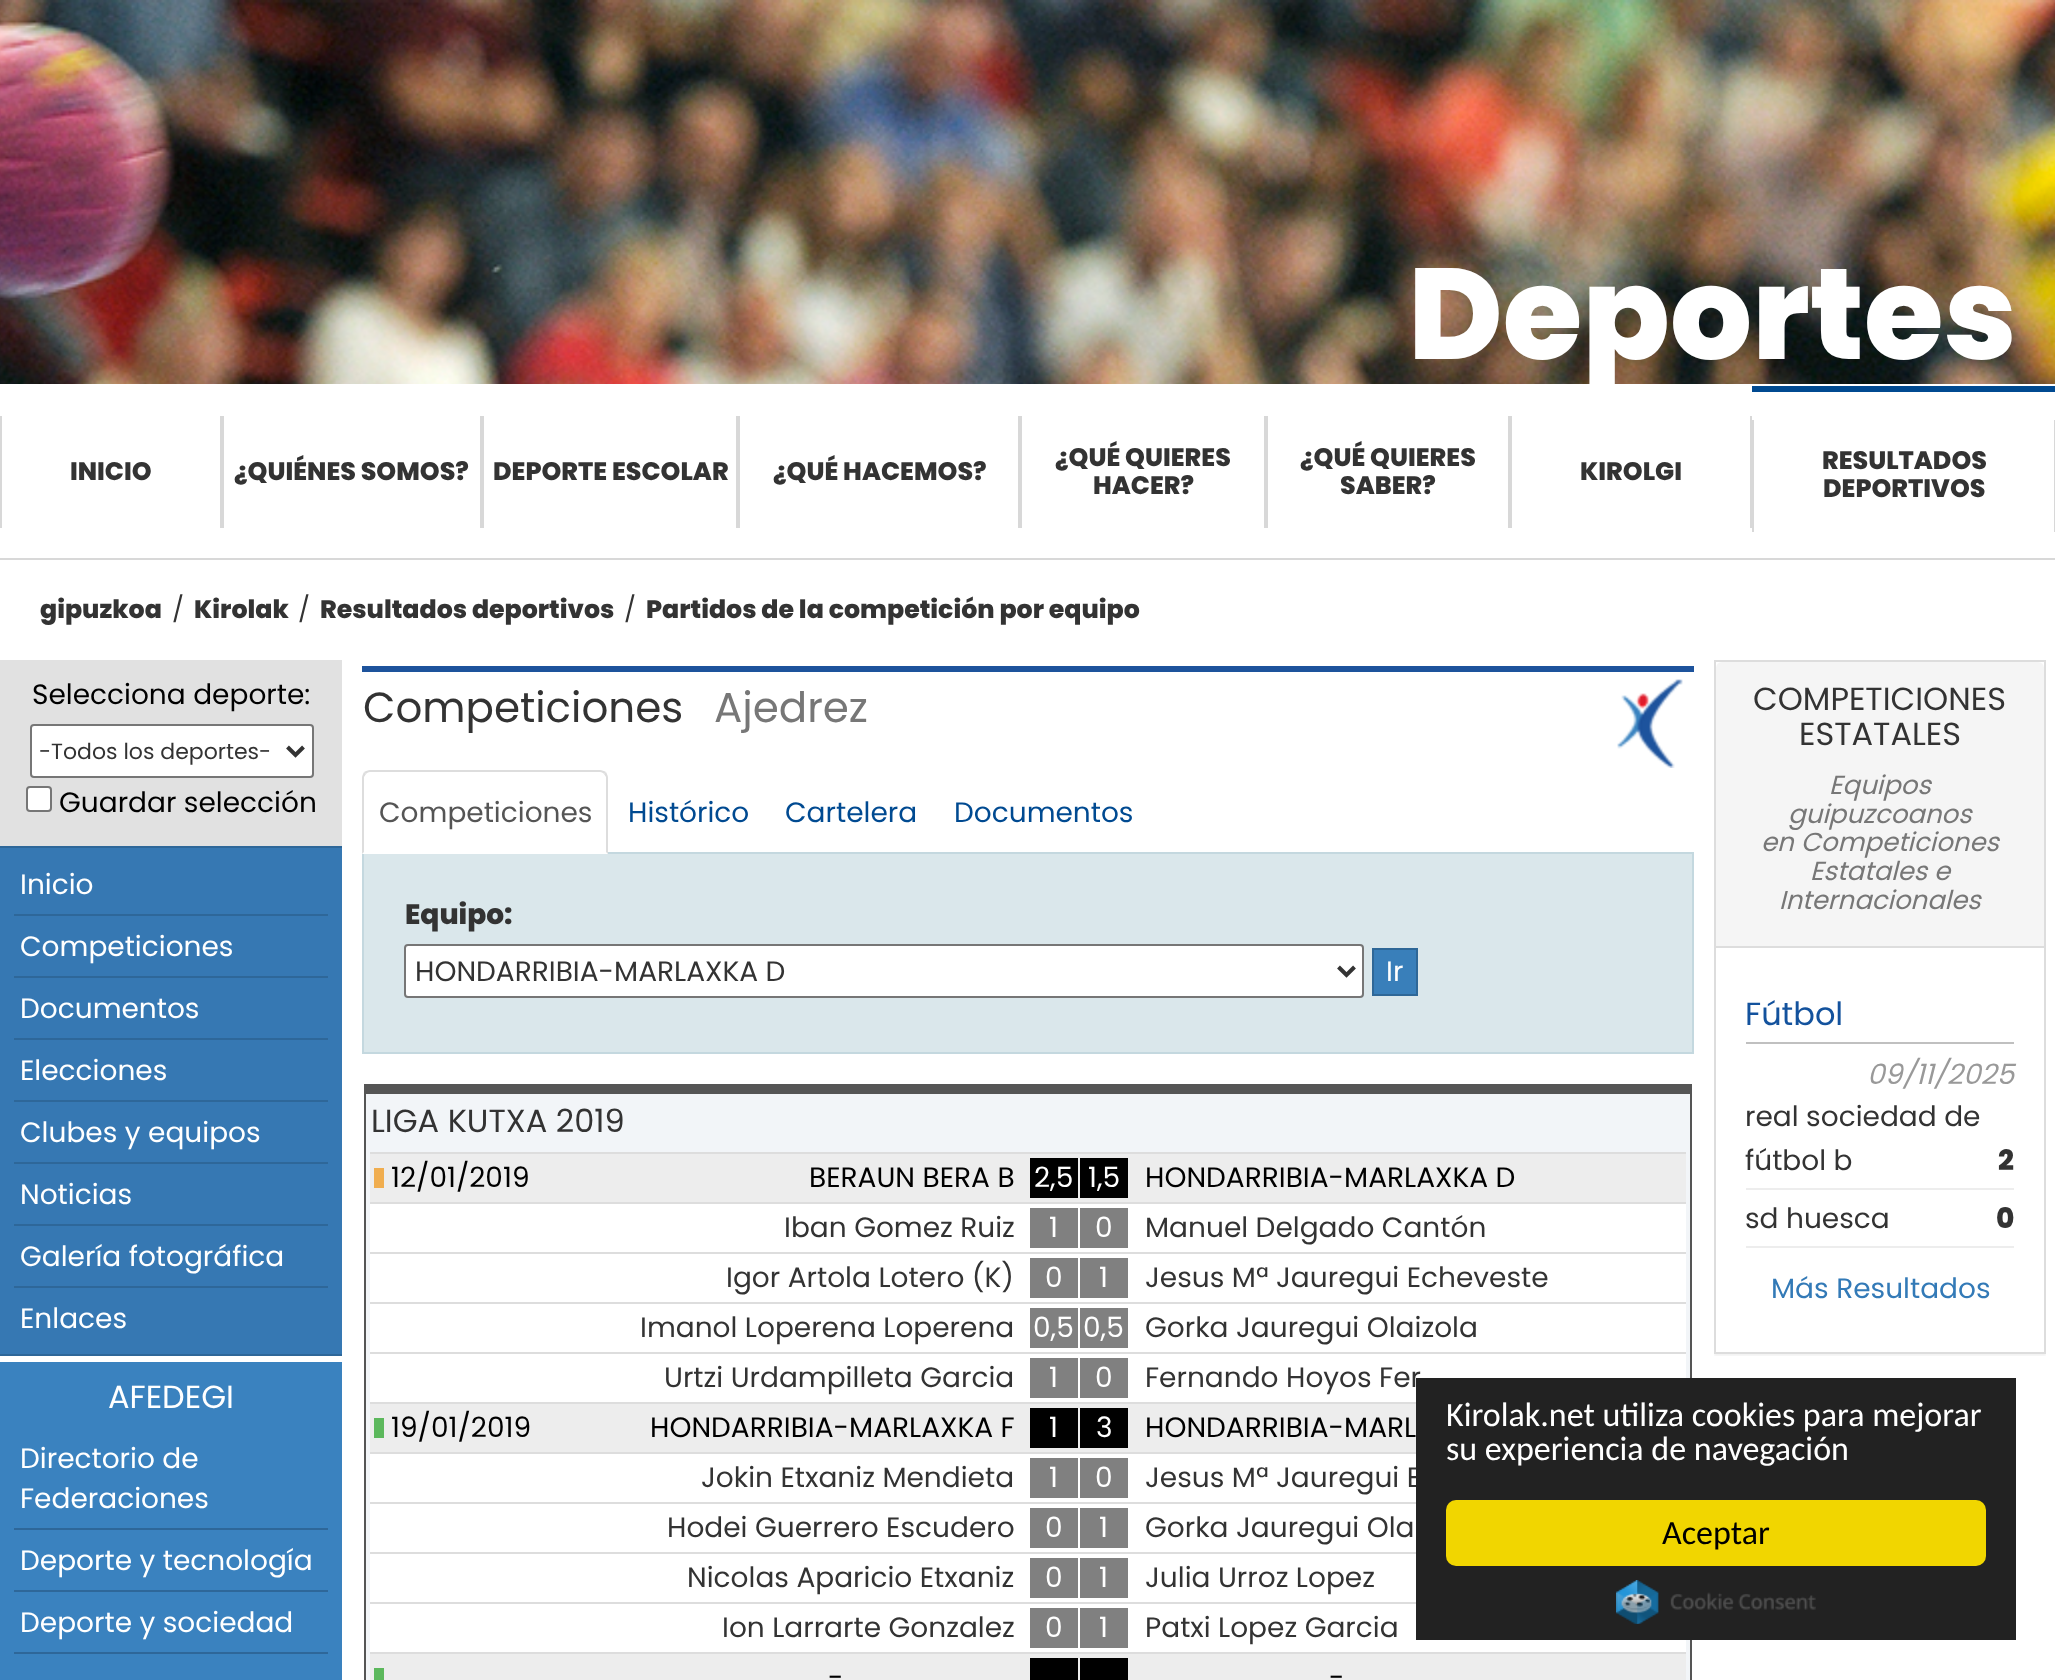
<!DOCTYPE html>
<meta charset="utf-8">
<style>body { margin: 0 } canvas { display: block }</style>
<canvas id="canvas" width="2055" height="1680"></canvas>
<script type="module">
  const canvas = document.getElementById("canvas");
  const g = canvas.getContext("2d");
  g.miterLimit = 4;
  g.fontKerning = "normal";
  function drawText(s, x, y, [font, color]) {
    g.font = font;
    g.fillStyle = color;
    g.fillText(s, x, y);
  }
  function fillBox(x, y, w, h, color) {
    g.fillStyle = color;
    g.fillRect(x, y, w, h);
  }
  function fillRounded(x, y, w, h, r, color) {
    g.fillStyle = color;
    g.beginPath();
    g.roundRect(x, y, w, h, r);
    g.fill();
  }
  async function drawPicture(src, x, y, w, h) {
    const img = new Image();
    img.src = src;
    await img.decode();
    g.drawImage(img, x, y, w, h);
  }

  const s1 = ["800 129px Poppins", "#FFFFFF"];
  const s2 = ["800 25.25px Poppins", "#333333"];
  const s3 = ["25.25px Poppins", "#333333"];
  const s4 = ["28px Poppins", "#000000"];
  const s5 = ["22px Poppins", "#333333"];
  const s6 = ["28px Poppins", "#FFFFFF"];
  const s7 = ["32px Poppins", "#FFFFFF"];
  const s8 = ["42px Poppins", "#333333"];
  const s9 = ["42px Poppins", "#777777"];
  const s10 = ["28px Poppins", "#555555"];
  const s11 = ["28px Poppins", "#004A91"];
  const s12 = ["800 28px Poppins", "#333333"];
  const s13 = ["28px Poppins", "#333333"];
  const s14 = ["32px Poppins", "#333333"];
  const s15 = ["italic 26px Poppins", "#777777"];
  const s16 = ["32px Poppins", "#13529D"];
  const s17 = ["italic 28px Poppins", "#999999"];
  const s18 = ["28px Poppins", "#337AB7"];
  const s19 = ["34px Carlito", "#FFFFFF"];
  const s20 = ["34px Carlito", "#000000"];

  fillBox(0, 0, 2055, 1680, "#FFFFFF");
  await drawPicture("pic1.png", 0, 0, 2055, 384);
  drawText("Deportes", 1408, 359, s1);
  fillBox(0, 558, 2055, 2, "#D8D8D8");
  fillBox(220, 416, 4, 112, "#D8D8D8");
  fillBox(0, 416, 2, 112, "#D8D8D8");
  drawText("INICIO", 70, 480, s2);
  fillBox(480, 416, 4, 112, "#D8D8D8");
  drawText("¿QUIÉNES SOMOS?", 234, 480, s2);
  fillBox(736, 416, 4, 112, "#D8D8D8");
  drawText("DEPORTE ESCOLAR", 493, 480, s2);
  fillBox(1018, 416, 4, 112, "#D8D8D8");
  drawText("¿QUÉ HACEMOS?", 773, 480, s2);
  fillBox(1264, 416, 4, 112, "#D8D8D8");
  drawText("¿QUÉ QUIERES", 1055, 466, s2);
  drawText("HACER?", 1093, 494, s2);
  fillBox(1508, 416, 4, 112, "#D8D8D8");
  drawText("¿QUÉ QUIERES", 1300, 466, s2);
  drawText("SABER?", 1340, 494, s2);
  fillBox(1750, 416, 2, 112, "#D8D8D8");
  drawText("KIROLGI", 1580, 480, s2);
  fillBox(1752, 386, 303, 6, "#004A91");
  fillBox(2054, 420, 1, 112, "#D8D8D8");
  fillBox(1752, 420, 2, 112, "#D8D8D8");
  drawText("RESULTADOS", 1822, 469, s2);
  drawText("DEPORTIVOS", 1823, 497, s2);
  drawText("gipuzkoa", 40, 618, s2);
  drawText("/", 172, 618, s3);
  drawText("Kirolak", 194, 618, s2);
  drawText("/", 298, 618, s3);
  drawText("Resultados deportivos", 320, 618, s2);
  drawText("/", 624, 618, s3);
  drawText("Partidos de la competición por equipo", 646, 618, s2);
  fillBox(0, 660, 342, 186, "#E1E1E1");
  drawText("Selecciona deporte:", 32, 704, s4);
  g.fillStyle = "#FFFFFF";
  g.beginPath();
  g.roundRect(31, 725, 282, 52, 3);
  g.fill();
  g.strokeStyle = "#767676";
  g.lineWidth = 2;
  g.stroke();
  g.beginPath();
  g.moveTo(287.5, 747);
  g.lineTo(295.5, 755);
  g.lineTo(303.5, 747);
  g.strokeStyle = "#333333";
  g.lineWidth = 4;
  g.stroke();
  drawText("-Todos los deportes-", 39, 759, s5);
  g.fillStyle = "#FFFFFF";
  g.beginPath();
  g.roundRect(27, 787, 24, 24, 3);
  g.fill();
  g.strokeStyle = "#767676";
  g.lineWidth = 2;
  g.stroke();
  drawText("Guardar selección", 59, 812, s4);
  fillBox(0, 848, 342, 506, "#3678B3");
  fillBox(0, 846, 342, 2, "#2E6799");
  fillBox(0, 1354, 342, 2, "#2E6799");
  fillBox(14, 914, 314, 2, "#2E6799");
  drawText("Inicio", 20, 894, s6);
  fillBox(14, 976, 314, 2, "#2E6799");
  drawText("Competiciones", 20, 956, s6);
  fillBox(14, 1038, 314, 2, "#2E6799");
  drawText("Documentos", 20, 1018, s6);
  fillBox(14, 1100, 314, 2, "#2E6799");
  drawText("Elecciones", 20, 1080, s6);
  fillBox(14, 1162, 314, 2, "#2E6799");
  drawText("Clubes y equipos", 20, 1142, s6);
  fillBox(14, 1224, 314, 2, "#2E6799");
  drawText("Noticias", 20, 1204, s6);
  fillBox(14, 1286, 314, 2, "#2E6799");
  drawText("Galería fotográfica", 20, 1266, s6);
  drawText("Enlaces", 20, 1328, s6);
  fillBox(0, 1362, 342, 318, "#3A82BF");
  drawText("AFEDEGI", 108, 1408, s7);
  fillBox(14, 1528, 314, 2, "#2E6799");
  drawText("Directorio de", 20, 1468, s6);
  drawText("Federaciones", 20, 1508, s6);
  fillBox(14, 1590, 314, 2, "#2E6799");
  drawText("Deporte y tecnología", 20, 1570, s6);
  fillBox(14, 1652, 314, 2, "#2E6799");
  drawText("Deporte y sociedad", 20, 1632, s6);
  await drawPicture("pic2.png", 1617, 679, 66, 89);
  fillBox(362, 666, 1332, 6, "#1D539C");
  drawText("Competiciones", 363, 722, s8);
  drawText("Ajedrez", 714, 722, s9);
  g.fillStyle = "#DAE7EB";
  g.beginPath();
  g.rect(363, 853, 1330, 200);
  g.fill();
  g.strokeStyle = "#C4D8DF";
  g.stroke();
  g.fillStyle = "#FFFFFF";
  g.beginPath();
  g.roundRect(362, 770, 246, 84, [8, 8, 0, 0]);
  g.fill();
  g.fillStyle = "#DDDDDD";
  g.beginPath();
  g.moveTo(370, 770);
  g.bezierCurveTo(368, 770, 366, 771, 364, 772);
  g.lineTo(366, 774);
  g.bezierCurveTo(367, 773, 368, 772, 370, 772);
  g.lineTo(600, 772);
  g.bezierCurveTo(602, 772, 603, 773, 604, 774);
  g.lineTo(606, 772);
  g.bezierCurveTo(604, 771, 602, 770, 600, 770);
  g.closePath();
  g.fill();
  g.beginPath();
  g.moveTo(608, 854);
  g.lineTo(608, 778);
  g.bezierCurveTo(608, 776, 607, 774, 606, 772);
  g.lineTo(604, 774);
  g.lineTo(606, 777);
  g.lineTo(606, 852);
  g.closePath();
  g.fill();
  g.beginPath();
  g.moveTo(362, 854);
  g.lineTo(364, 852);
  g.lineTo(364, 777);
  g.lineTo(366, 774);
  g.lineTo(364, 772);
  g.bezierCurveTo(363, 774, 362, 776, 362, 778);
  g.closePath();
  g.fill();
  drawText("Competiciones", 379, 822, s10);
  drawText("Histórico", 628, 822, s11);
  drawText("Cartelera", 785, 822, s11);
  drawText("Documentos", 954, 822, s11);
  drawText("Equipo:", 405, 924, s12);
  g.fillStyle = "#FFFFFF";
  g.beginPath();
  g.roundRect(405, 945, 958, 52, 3);
  g.fill();
  g.strokeStyle = "#767676";
  g.stroke();
  g.beginPath();
  g.moveTo(1338.5, 967);
  g.lineTo(1346.5, 975);
  g.lineTo(1354.5, 967);
  g.strokeStyle = "#333333";
  g.lineWidth = 4;
  g.stroke();
  drawText("HONDARRIBIA-MARLAXKA D", 415, 981, s13);
  g.fillStyle = "#397FBA";
  g.beginPath();
  g.rect(1373, 949, 44, 46);
  g.fill();
  g.strokeStyle = "#2E6797";
  g.lineWidth = 2;
  g.stroke();
  drawText("Ir", 1386, 981, s6);
  fillBox(366, 1094, 1324, 586, "#F2F5F8");
  fillBox(366, 1084, 1324, 10, "#555555");
  fillBox(1690, 1084, 2, 596, "#555555");
  fillBox(364, 1084, 2, 596, "#555555");
  drawText("LIGA KUTXA 2019", 371, 1132, s14);
  fillBox(370, 1204, 1316, 448, "#FFFFFF");
  fillBox(370, 1154, 1316, 48, "#EDEDED");
  fillBox(374, 1168, 10, 20, "#F0AD4E");
  drawText("12/01/2019", 391, 1187, s4);
  drawText("BERAUN BERA B", 809, 1187, s4);
  fillBox(1030, 1158, 48, 40, "#000000");
  drawText("2,5", 1034, 1187, s6);
  fillBox(1080, 1158, 48, 40, "#000000");
  drawText("1,5", 1088, 1187, s6);
  fillBox(370, 1152, 1316, 2, "#DDDDDD");
  drawText("HONDARRIBIA-MARLAXKA D", 1145, 1187, s4);
  drawText("Iban Gomez Ruiz", 784, 1237, s13);
  fillBox(1030, 1208, 48, 40, "#808080");
  drawText("1", 1049, 1237, s6);
  fillBox(1080, 1208, 48, 40, "#808080");
  drawText("0", 1095, 1237, s6);
  fillBox(370, 1202, 1316, 2, "#DDDDDD");
  drawText("Manuel Delgado Cantón", 1145, 1237, s13);
  drawText("Igor Artola Lotero (K)", 726, 1287, s13);
  fillBox(1030, 1258, 48, 40, "#808080");
  drawText("0", 1045, 1287, s6);
  fillBox(1080, 1258, 48, 40, "#808080");
  drawText("1", 1099, 1287, s6);
  fillBox(370, 1252, 1316, 2, "#DDDDDD");
  drawText("Jesus Mª Jauregui Echeveste", 1145, 1287, s13);
  drawText("Imanol Loperena Loperena", 640, 1337, s13);
  fillBox(1030, 1308, 48, 40, "#808080");
  drawText("0,5", 1033, 1337, s6);
  fillBox(1080, 1308, 48, 40, "#808080");
  drawText("0,5", 1083, 1337, s6);
  fillBox(370, 1302, 1316, 2, "#DDDDDD");
  drawText("Gorka Jauregui Olaizola", 1145, 1337, s13);
  drawText("Urtzi Urdampilleta Garcia", 664, 1387, s13);
  fillBox(1030, 1358, 48, 40, "#808080");
  drawText("1", 1049, 1387, s6);
  fillBox(1080, 1358, 48, 40, "#808080");
  drawText("0", 1095, 1387, s6);
  fillBox(370, 1352, 1316, 2, "#DDDDDD");
  drawText("Fernando Hoyos Fer", 1145, 1387, s13);
  fillBox(370, 1404, 1046, 48, "#EDEDED");
  fillBox(374, 1418, 10, 20, "#5CB85C");
  drawText("19/01/2019", 391, 1437, s4);
  drawText("HONDARRIBIA-MARLAXKA F", 650, 1437, s4);
  fillBox(1030, 1408, 48, 40, "#000000");
  drawText("1", 1049, 1437, s6);
  fillBox(1080, 1408, 48, 40, "#000000");
  drawText("3", 1096, 1437, s6);
  fillBox(370, 1402, 1046, 2, "#DDDDDD");
  drawText("HONDARRIBIA-MARL", 1145, 1437, s4);
  drawText("Jokin Etxaniz Mendieta", 701, 1487, s13);
  fillBox(1030, 1458, 48, 40, "#808080");
  drawText("1", 1049, 1487, s6);
  fillBox(1080, 1458, 48, 40, "#808080");
  drawText("0", 1095, 1487, s6);
  fillBox(370, 1452, 1046, 2, "#DDDDDD");
  drawText("Jesus Mª Jauregui E", 1145, 1487, s13);
  drawText("Hodei Guerrero Escudero", 667, 1537, s13);
  fillBox(1030, 1508, 48, 40, "#808080");
  drawText("0", 1045, 1537, s6);
  fillBox(1080, 1508, 48, 40, "#808080");
  drawText("1", 1099, 1537, s6);
  fillBox(370, 1502, 1046, 2, "#DDDDDD");
  drawText("Gorka Jauregui Ola", 1145, 1537, s13);
  drawText("Nicolas Aparicio Etxaniz", 687, 1587, s13);
  fillBox(1030, 1558, 48, 40, "#808080");
  drawText("0", 1045, 1587, s6);
  fillBox(1080, 1558, 48, 40, "#808080");
  drawText("1", 1099, 1587, s6);
  fillBox(370, 1552, 1046, 2, "#DDDDDD");
  drawText("Julia Urroz Lopez", 1145, 1587, s13);
  drawText("Ion Larrarte Gonzalez", 722, 1637, s13);
  fillBox(1030, 1608, 48, 40, "#808080");
  drawText("0", 1045, 1637, s6);
  fillBox(1080, 1608, 48, 40, "#808080");
  drawText("1", 1099, 1637, s6);
  fillBox(370, 1602, 1046, 2, "#DDDDDD");
  drawText("Patxi Lopez Garcia", 1145, 1637, s13);
  fillBox(370, 1654, 1316, 26, "#EDEDED");
  fillBox(374, 1668, 10, 12, "#5CB85C");
  drawText("-", 828, 1687, s4);
  fillBox(1030, 1658, 48, 22, "#000000");
  fillBox(1080, 1658, 48, 22, "#000000");
  fillBox(370, 1652, 1316, 2, "#DDDDDD");
  drawText("-", 1329, 1687, s4);
  g.save();
  g.beginPath();
  g.rect(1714, 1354, 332, 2);
  g.clip();
  g.fillStyle = "rgba(0, 0, 0, 0.05)";
  g.filter = "blur(1px)";
  g.beginPath();
  g.rect(1714, 662, 332, 694);
  g.fill();
  g.filter = "none";
  g.restore();
  g.strokeStyle = "#DDDDDD";
  g.strokeRect(1715, 661, 330, 692);
  g.fillStyle = "#F5F5F5";
  g.beginPath();
  g.roundRect(1716, 662, 328, 286, [6, 6, 0, 0]);
  g.fill();
  fillBox(1716, 946, 328, 2, "#DDDDDD");
  drawText("COMPETICIONES", 1753, 710, s14);
  drawText("ESTATALES", 1799, 745, s14);
  drawText("Equipos", 1829, 794, s15);
  drawText("guipuzcoanos", 1788, 823, s15);
  drawText("en Competiciones", 1761, 851, s15);
  drawText("Estatales e", 1810, 880, s15);
  drawText("Internacionales", 1779, 909, s15);
  fillBox(1746, 1042, 268, 2, "#C0C0C0");
  drawText("Fútbol", 1745, 1025, s16);
  drawText("09/11/2025", 1867, 1084, s17);
  fillBox(1746, 1188, 268, 2, "#EDEDED");
  drawText("real sociedad de", 1745, 1126, s13);
  drawText("fútbol b", 1745, 1170, s13);
  drawText("2", 1998, 1170, s12);
  fillBox(1746, 1246, 268, 2, "#EDEDED");
  drawText("sd huesca", 1745, 1228, s13);
  drawText("0", 1996, 1228, s12);
  drawText("Más Resultados", 1771, 1298, s18);
  fillBox(1416, 1378, 600, 262, "#222222");
  drawText("Kirolak.net utiliza cookies para mejorar", 1446, 1426, s19);
  drawText("su experiencia de navegación", 1446, 1460, s19);
  fillRounded(1446, 1500, 540, 66, 10, "#F1D600");
  drawText("Aceptar", 1662, 1544, s20);
  await drawPicture("pic3.png", 1616, 1580, 200, 44);
</script>
